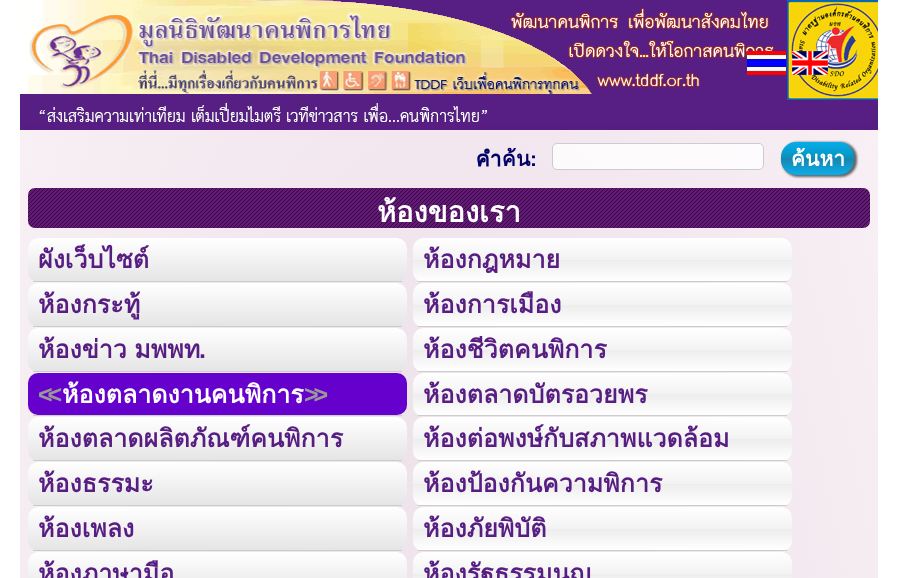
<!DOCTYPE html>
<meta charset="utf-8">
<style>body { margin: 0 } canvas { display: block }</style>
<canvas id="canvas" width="898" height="578"></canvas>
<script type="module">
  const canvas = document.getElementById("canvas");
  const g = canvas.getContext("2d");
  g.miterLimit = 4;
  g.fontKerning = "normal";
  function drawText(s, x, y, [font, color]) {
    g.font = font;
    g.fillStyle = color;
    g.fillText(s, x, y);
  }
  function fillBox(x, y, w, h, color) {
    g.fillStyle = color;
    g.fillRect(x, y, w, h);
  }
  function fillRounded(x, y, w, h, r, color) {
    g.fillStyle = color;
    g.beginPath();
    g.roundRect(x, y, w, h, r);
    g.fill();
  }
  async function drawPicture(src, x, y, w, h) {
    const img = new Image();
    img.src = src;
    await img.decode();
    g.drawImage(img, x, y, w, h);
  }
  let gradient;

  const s1 = ["bold 21px Loma", "#000066"];
  const s2 = ["bold 21px Liberation Sans", "#000066"];
  const s3 = ["bold 21px Loma", "#FFFFFF"];
  const s4 = ["bold 29px Loma", "#FFFFFF"];
  const s5 = ["bold 25px Loma", "#571D82"];
  const s6 = ["bold 25px Liberation Sans", "#571D82"];
  const s7 = ["bold 25px Liberation Sans", "#999999"];
  const s8 = ["bold 25px Loma", "#FFFFFF"];

  fillBox(0, 0, 898, 578, "#FFFFFF");
  gradient = g.createRadialGradient(449, 429.23, 0, 449, 429.23, 607);
  gradient.addColorStop(0, "#F5F0F4");
  gradient.addColorStop(0.5, "#EFE3EB");
  gradient.addColorStop(1, "#F9F1F6");
  g.fillStyle = gradient;
  g.beginPath();
  g.rect(20, 130, 858, 448);
  g.save();
  g.clip();
  g.scale(1, 2117 / 607);
  g.fillRect(0, 0, 898, 166);
  g.restore();
  fillBox(20, 122, 858, 8, "#571D82");
  await drawPicture("pic1.png", 20, 0, 858, 122);
  await drawPicture("pic2.png", 747, 51, 39, 24);
  await drawPicture("pic3.png", 792, 51, 36, 24);
  drawText("คำค้น", 476, 166, s1);
  drawText(":", 530, 166, s2);
  g.fillStyle = "rgba(255, 255, 255, 0.8)";
  g.beginPath();
  g.roundRect(552.5, 143.5, 211, 26, 4.5);
  g.fill();
  g.strokeStyle = "#CCCCCC";
  g.stroke();
  g.fillStyle = "#666666";
  g.filter = "blur(1px)";
  g.beginPath();
  g.roundRect(782, 142, 75, 35, 16);
  g.fill();
  g.filter = "none";
  gradient = g.createLinearGradient(818, 142, 818, 175);
  gradient.addColorStop(0, "#07ADEA");
  gradient.addColorStop(0.47, "#0593BF");
  gradient.addColorStop(0.49, "#1A83AD");
  gradient.addColorStop(1, "#09AEEA");
  g.fillStyle = gradient;
  g.beginPath();
  g.roundRect(781, 142, 73, 33, 15);
  g.fill();
  g.save();
  g.beginPath();
  g.roundRect(781, 142, 73, 33, 15);
  g.clip();
  drawText("ค้นหา", 791, 166, s3);
  g.restore();
  await drawPicture("pic4.png", 28, 188, 842, 40);
  drawText("ห้องของเรา", 377, 222, s4);
  g.save();
  g.beginPath();
  g.roundRect(28, 238, 379, 44, 10);
  g.clip();
  gradient = g.createLinearGradient(218, 238, 218, 281);
  gradient.addColorStop(0, "#FFFFFF");
  gradient.addColorStop(1, "#E5E5E5");
  g.fillStyle = gradient;
  g.beginPath();
  g.roundRect(28, 238, 379, 43, [10, 10, 0, 0]);
  g.fill();
  g.restore();
  fillBox(33, 281, 369, 1, "#CCCCCC");
  drawText("ผังเว็บไซต์", 38, 268, s5);
  g.save();
  g.beginPath();
  g.roundRect(413, 238, 379, 44, 10);
  g.clip();
  gradient = g.createLinearGradient(603, 238, 603, 281);
  gradient.addColorStop(0, "#FFFFFF");
  gradient.addColorStop(0.5, "#F3F3F3");
  gradient.addColorStop(0.51, "#EDEDED");
  gradient.addColorStop(1, "#FFFFFF");
  g.fillStyle = gradient;
  g.beginPath();
  g.roundRect(413, 238, 379, 43, [10, 10, 0, 0]);
  g.fill();
  g.restore();
  fillBox(418, 281, 369, 1, "#CCCCCC");
  drawText("ห้องกฎหมาย", 423, 268, s5);
  g.save();
  g.beginPath();
  g.roundRect(28, 283, 379, 44, 10);
  g.clip();
  gradient = g.createLinearGradient(218, 283, 218, 326);
  gradient.addColorStop(0, "#FFFFFF");
  gradient.addColorStop(1, "#E5E5E5");
  g.fillStyle = gradient;
  g.beginPath();
  g.roundRect(28, 283, 379, 43, [10, 10, 0, 0]);
  g.fill();
  g.restore();
  fillBox(33, 326, 369, 1, "#CCCCCC");
  drawText("ห้องกระทู้", 38, 313, s5);
  g.save();
  g.beginPath();
  g.roundRect(413, 283, 379, 44, 10);
  g.clip();
  gradient = g.createLinearGradient(603, 283, 603, 326);
  gradient.addColorStop(0, "#FFFFFF");
  gradient.addColorStop(0.5, "#F3F3F3");
  gradient.addColorStop(0.51, "#EDEDED");
  gradient.addColorStop(1, "#FFFFFF");
  g.fillStyle = gradient;
  g.beginPath();
  g.roundRect(413, 283, 379, 43, [10, 10, 0, 0]);
  g.fill();
  g.restore();
  fillBox(418, 326, 369, 1, "#CCCCCC");
  drawText("ห้องการเมือง", 423, 313, s5);
  g.save();
  g.beginPath();
  g.roundRect(28, 328, 379, 44, 10);
  g.clip();
  gradient = g.createLinearGradient(218, 328, 218, 371);
  gradient.addColorStop(0, "#FFFFFF");
  gradient.addColorStop(1, "#E5E5E5");
  g.fillStyle = gradient;
  g.beginPath();
  g.roundRect(28, 328, 379, 43, [10, 10, 0, 0]);
  g.fill();
  g.restore();
  fillBox(33, 371, 369, 1, "#CCCCCC");
  g.wordSpacing = "-1px";
  drawText("ห้องข่าว มพพท", 38, 358, s5);
  g.wordSpacing = "0px";
  drawText(".", 199, 358, s6);
  g.save();
  g.beginPath();
  g.roundRect(413, 328, 379, 44, 10);
  g.clip();
  gradient = g.createLinearGradient(603, 328, 603, 371);
  gradient.addColorStop(0, "#FFFFFF");
  gradient.addColorStop(0.5, "#F3F3F3");
  gradient.addColorStop(0.51, "#EDEDED");
  gradient.addColorStop(1, "#FFFFFF");
  g.fillStyle = gradient;
  g.beginPath();
  g.roundRect(413, 328, 379, 43, [10, 10, 0, 0]);
  g.fill();
  g.restore();
  fillBox(418, 371, 369, 1, "#CCCCCC");
  drawText("ห้องชีวิตคนพิการ", 423, 358, s5);
  g.save();
  g.beginPath();
  g.roundRect(28, 373, 379, 43, 10);
  g.clip();
  gradient = g.createLinearGradient(218, 373, 218, 415);
  gradient.addColorStop(0, "#FFFFFF");
  gradient.addColorStop(1, "#E5E5E5");
  g.fillStyle = gradient;
  g.beginPath();
  g.roundRect(28, 373, 379, 42, [10, 10, 0, 0]);
  g.fill();
  g.restore();
  fillBox(33, 415, 369, 1, "#CCCCCC");
  fillRounded(28, 373, 379, 42, 10, "#6600CC");
  g.letterSpacing = "-5px";
  drawText("<<", 38, 403, s7);
  g.letterSpacing = "0px";
  drawText("ห้องตลาดงานคนพิการ", 62, 403, s8);
  g.letterSpacing = "-5px";
  drawText(">>", 304, 403, s7);
  g.save();
  g.beginPath();
  g.roundRect(413, 373, 379, 43, 10);
  g.clip();
  gradient = g.createLinearGradient(603, 373, 603, 415);
  gradient.addColorStop(0, "#FFFFFF");
  gradient.addColorStop(0.5, "#F3F3F3");
  gradient.addColorStop(0.51, "#EDEDED");
  gradient.addColorStop(1, "#FFFFFF");
  g.fillStyle = gradient;
  g.beginPath();
  g.roundRect(413, 373, 379, 42, [10, 10, 0, 0]);
  g.fill();
  g.restore();
  fillBox(418, 415, 369, 1, "#CCCCCC");
  g.letterSpacing = "0px";
  drawText("ห้องตลาดบัตรอวยพร", 423, 403, s5);
  g.save();
  g.beginPath();
  g.roundRect(28, 417, 379, 44, 10);
  g.clip();
  gradient = g.createLinearGradient(218, 417, 218, 460);
  gradient.addColorStop(0, "#FFFFFF");
  gradient.addColorStop(1, "#E5E5E5");
  g.fillStyle = gradient;
  g.beginPath();
  g.roundRect(28, 417, 379, 43, [10, 10, 0, 0]);
  g.fill();
  g.restore();
  fillBox(33, 460, 369, 1, "#CCCCCC");
  drawText("ห้องตลาดผลิตภัณฑ์คนพิการ", 38, 447, s5);
  g.save();
  g.beginPath();
  g.roundRect(413, 417, 379, 44, 10);
  g.clip();
  gradient = g.createLinearGradient(603, 417, 603, 460);
  gradient.addColorStop(0, "#FFFFFF");
  gradient.addColorStop(0.5, "#F3F3F3");
  gradient.addColorStop(0.51, "#EDEDED");
  gradient.addColorStop(1, "#FFFFFF");
  g.fillStyle = gradient;
  g.beginPath();
  g.roundRect(413, 417, 379, 43, [10, 10, 0, 0]);
  g.fill();
  g.restore();
  fillBox(418, 460, 369, 1, "#CCCCCC");
  drawText("ห้องต่อพงษ์กับสภาพแวดล้อม", 423, 447, s5);
  g.save();
  g.beginPath();
  g.roundRect(28, 462, 379, 44, 10);
  g.clip();
  gradient = g.createLinearGradient(218, 462, 218, 505);
  gradient.addColorStop(0, "#FFFFFF");
  gradient.addColorStop(1, "#E5E5E5");
  g.fillStyle = gradient;
  g.beginPath();
  g.roundRect(28, 462, 379, 43, [10, 10, 0, 0]);
  g.fill();
  g.restore();
  fillBox(33, 505, 369, 1, "#CCCCCC");
  drawText("ห้องธรรมะ", 38, 492, s5);
  g.save();
  g.beginPath();
  g.roundRect(413, 462, 379, 44, 10);
  g.clip();
  gradient = g.createLinearGradient(603, 462, 603, 505);
  gradient.addColorStop(0, "#FFFFFF");
  gradient.addColorStop(0.5, "#F3F3F3");
  gradient.addColorStop(0.51, "#EDEDED");
  gradient.addColorStop(1, "#FFFFFF");
  g.fillStyle = gradient;
  g.beginPath();
  g.roundRect(413, 462, 379, 43, [10, 10, 0, 0]);
  g.fill();
  g.restore();
  fillBox(418, 505, 369, 1, "#CCCCCC");
  drawText("ห้องป้องกันความพิการ", 423, 492, s5);
  g.save();
  g.beginPath();
  g.roundRect(28, 507, 379, 44, 10);
  g.clip();
  gradient = g.createLinearGradient(218, 507, 218, 550);
  gradient.addColorStop(0, "#FFFFFF");
  gradient.addColorStop(1, "#E5E5E5");
  g.fillStyle = gradient;
  g.beginPath();
  g.roundRect(28, 507, 379, 43, [10, 10, 0, 0]);
  g.fill();
  g.restore();
  fillBox(33, 550, 369, 1, "#CCCCCC");
  drawText("ห้องเพลง", 38, 537, s5);
  g.save();
  g.beginPath();
  g.roundRect(413, 507, 379, 44, 10);
  g.clip();
  gradient = g.createLinearGradient(603, 507, 603, 550);
  gradient.addColorStop(0, "#FFFFFF");
  gradient.addColorStop(0.5, "#F3F3F3");
  gradient.addColorStop(0.51, "#EDEDED");
  gradient.addColorStop(1, "#FFFFFF");
  g.fillStyle = gradient;
  g.beginPath();
  g.roundRect(413, 507, 379, 43, [10, 10, 0, 0]);
  g.fill();
  g.restore();
  fillBox(418, 550, 369, 1, "#CCCCCC");
  drawText("ห้องภัยพิบัติ", 423, 537, s5);
  g.save();
  g.beginPath();
  g.roundRect(28, 552, 379, 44, 10);
  g.clip();
  gradient = g.createLinearGradient(218, 552, 218, 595);
  gradient.addColorStop(0, "#FFFFFF");
  gradient.addColorStop(1, "#E5E5E5");
  g.fillStyle = gradient;
  g.beginPath();
  g.moveTo(38, 552);
  g.lineTo(397, 552);
  g.bezierCurveTo(402.5, 552, 407, 556.5, 407, 562);
  g.lineTo(407, 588);
  g.lineTo(28, 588);
  g.lineTo(28, 562);
  g.bezierCurveTo(28, 556.5, 32.5, 552, 38, 552);
  g.closePath();
  g.fill();
  g.restore();
  drawText("ห้องภาษามือ", 38, 582, s5);
  g.save();
  g.beginPath();
  g.roundRect(413, 552, 379, 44, 10);
  g.clip();
  gradient = g.createLinearGradient(603, 552, 603, 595);
  gradient.addColorStop(0, "#FFFFFF");
  gradient.addColorStop(0.5, "#F3F3F3");
  gradient.addColorStop(0.51, "#EDEDED");
  gradient.addColorStop(1, "#FFFFFF");
  g.fillStyle = gradient;
  g.beginPath();
  g.moveTo(423, 552);
  g.lineTo(782, 552);
  g.bezierCurveTo(787.5, 552, 792, 556.5, 792, 562);
  g.lineTo(792, 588);
  g.lineTo(413, 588);
  g.lineTo(413, 562);
  g.bezierCurveTo(413, 556.5, 417.5, 552, 423, 552);
  g.closePath();
  g.fill();
  g.restore();
  drawText("ห้องรัฐธรรมนูญ", 423, 582, s5);
</script>
